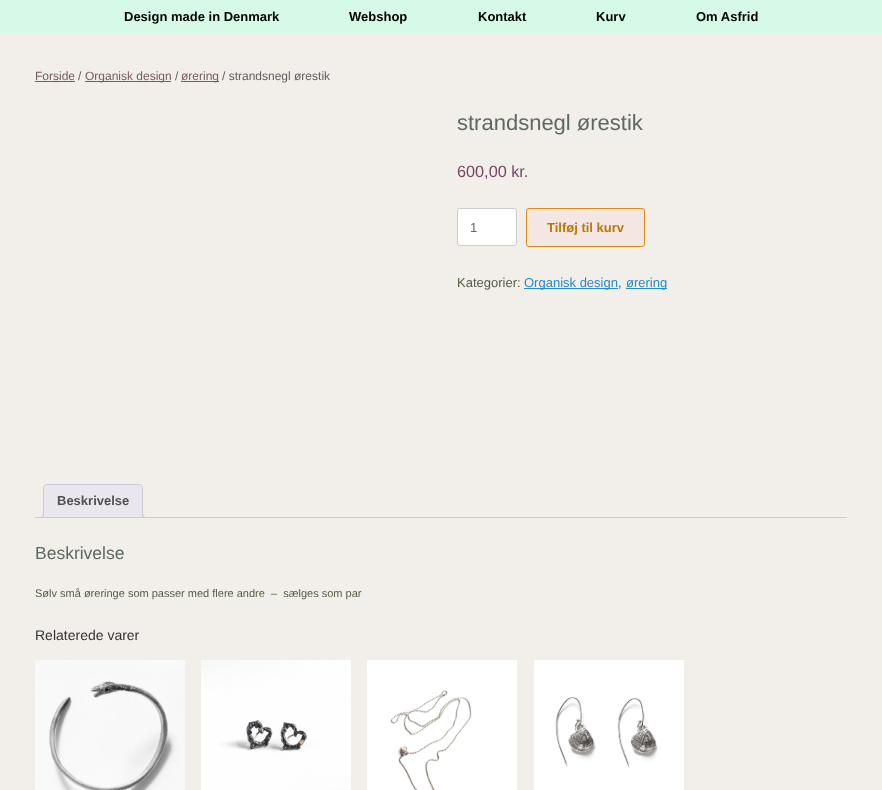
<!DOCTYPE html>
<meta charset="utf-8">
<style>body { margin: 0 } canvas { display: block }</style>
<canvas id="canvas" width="882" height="790"></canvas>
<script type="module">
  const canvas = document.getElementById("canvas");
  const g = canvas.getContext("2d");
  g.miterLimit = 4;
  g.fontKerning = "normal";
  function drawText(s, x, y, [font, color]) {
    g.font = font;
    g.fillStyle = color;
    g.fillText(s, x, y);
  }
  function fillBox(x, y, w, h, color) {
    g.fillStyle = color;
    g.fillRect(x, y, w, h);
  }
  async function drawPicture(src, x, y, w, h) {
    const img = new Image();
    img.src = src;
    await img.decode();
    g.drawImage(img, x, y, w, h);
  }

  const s1 = ["bold 13px Liberation Sans", "#000000"];
  const s2 = ["12px Liberation Sans", "#775C5C"];
  const s3 = ["12px Liberation Sans", "#5E5E5E"];
  const s4 = ["22px Liberation Sans", "#5D6865"];
  const s5 = ["16.25px Liberation Sans", "#754762"];
  const s6 = ["13px Liberation Sans", "#666666"];
  const s7 = ["bold 13px Liberation Sans", "#B77709"];
  const s8 = ["13px Liberation Sans", "#545E42"];
  const s9 = ["13px Liberation Sans", "#248CC8"];
  const s10 = ["bold 13px Liberation Sans", "#515151"];
  const s11 = ["17.5px Liberation Sans", "#5D6865"];
  const s12 = ["11px Liberation Sans", "#545E42"];
  const s13 = ["14px Liberation Sans", "#333333"];

  fillBox(0, 0, 882, 790, "#F2EEEA");
  fillBox(0, 0, 882, 33, "#D6F9E8");
  drawText("Design made in Denmark", 124, 21, s1);
  drawText("Webshop", 349, 21, s1);
  drawText("Kontakt", 478, 21, s1);
  drawText("Kurv", 596, 21, s1);
  drawText("Om Asfrid", 696, 21, s1);
  drawText("Forside", 35, 80, s2);
  fillBox(35, 81, 40, 1, "#775C5C");
  drawText("/", 78, 80, s3);
  fillBox(85, 81, 86, 1, "#775C5C");
  drawText("Organisk design", 85, 80, s2);
  drawText("/", 175, 80, s3);
  fillBox(181, 81, 38, 1, "#775C5C");
  drawText("ørering", 181, 80, s2);
  drawText("/ strandsnegl ørestik", 222, 80, s3);
  drawText("strandsnegl ørestik", 457, 130, s4);
  drawText("600,00 kr.", 457, 177, s5);
  g.fillStyle = "#FFFFFF";
  g.beginPath();
  g.roundRect(457.5, 208.5, 59, 37, 2.5);
  g.fill();
  g.strokeStyle = "#CCCCCC";
  g.stroke();
  drawText("1", 470, 232, s6);
  g.fillStyle = "#F4E7E3";
  g.beginPath();
  g.roundRect(526.5, 208.5, 118, 38, 2.5);
  g.fill();
  g.strokeStyle = "#DD8C11";
  g.stroke();
  drawText("Tilføj til kurv", 547, 232, s7);
  drawText("Kategorier:", 457, 287, s8);
  fillBox(524, 288, 94, 1, "#248CC8");
  drawText("Organisk design", 524, 287, s9);
  drawText(",", 618, 287, s8);
  fillBox(626, 288, 41, 1, "#248CC8");
  drawText("ørering", 626, 287, s9);
  g.fillStyle = "#E9E6ED";
  g.beginPath();
  g.roundRect(43.5, 484.5, 99, 33, [3.5, 3.5, 0, 0]);
  g.fill();
  g.strokeStyle = "#CFC8D8";
  g.stroke();
  drawText("Beskrivelse", 57, 505, s10);
  g.save();
  g.beginPath();
  g.rect(35, 484, 812, 34);
  g.clip();
  g.fillStyle = "#E9E6ED";
  g.beginPath();
  g.moveTo(41, 518);
  g.lineTo(41, 520);
  g.bezierCurveTo(44.5, 520, 46, 518.5, 46, 515);
  g.lineTo(44, 515);
  g.bezierCurveTo(43.5, 516.5, 42.5, 517.5, 41, 518);
  g.closePath();
  g.fill();
  g.restore();
  g.fillStyle = "#CFC8D8";
  g.beginPath();
  g.moveTo(39, 513);
  g.lineTo(44, 513);
  g.bezierCurveTo(44, 516.5, 42.5, 518, 39, 518);
  g.closePath();
  g.moveTo(39, 513);
  g.lineTo(43, 513);
  g.bezierCurveTo(43, 516, 42, 517, 39, 517);
  g.closePath();
  g.fill("evenodd");
  g.save();
  g.beginPath();
  g.rect(35, 484, 812, 34);
  g.clip();
  g.fillStyle = "#E9E6ED";
  g.beginPath();
  g.moveTo(140, 515);
  g.bezierCurveTo(140, 518.5, 141.5, 520, 145, 520);
  g.lineTo(145, 518);
  g.bezierCurveTo(143.5, 517.5, 142.5, 516.5, 142, 515);
  g.closePath();
  g.fill();
  g.restore();
  g.beginPath();
  g.moveTo(142, 513);
  g.lineTo(147, 513);
  g.lineTo(147, 518);
  g.bezierCurveTo(144.5, 518, 142, 517, 142, 514);
  g.closePath();
  g.moveTo(143, 513);
  g.lineTo(147, 513);
  g.lineTo(147, 517);
  g.bezierCurveTo(145, 517, 143, 516.5, 143, 514);
  g.closePath();
  g.fill("evenodd");
  fillBox(35, 517, 812, 1, "#CFC8D8");
  drawText("Beskrivelse", 35, 559, s11);
  drawText("Sølv små øreringe som passer med flere andre  –  sælges som par", 35, 597, s12);
  drawText("Relaterede varer", 35, 640, s13);
  await drawPicture("pic1.png", 35, 660, 150, 130);
  await drawPicture("pic2.png", 201, 660, 150, 130);
  await drawPicture("pic3.png", 367, 660, 150, 130);
  await drawPicture("pic4.png", 534, 660, 150, 130);
</script>
